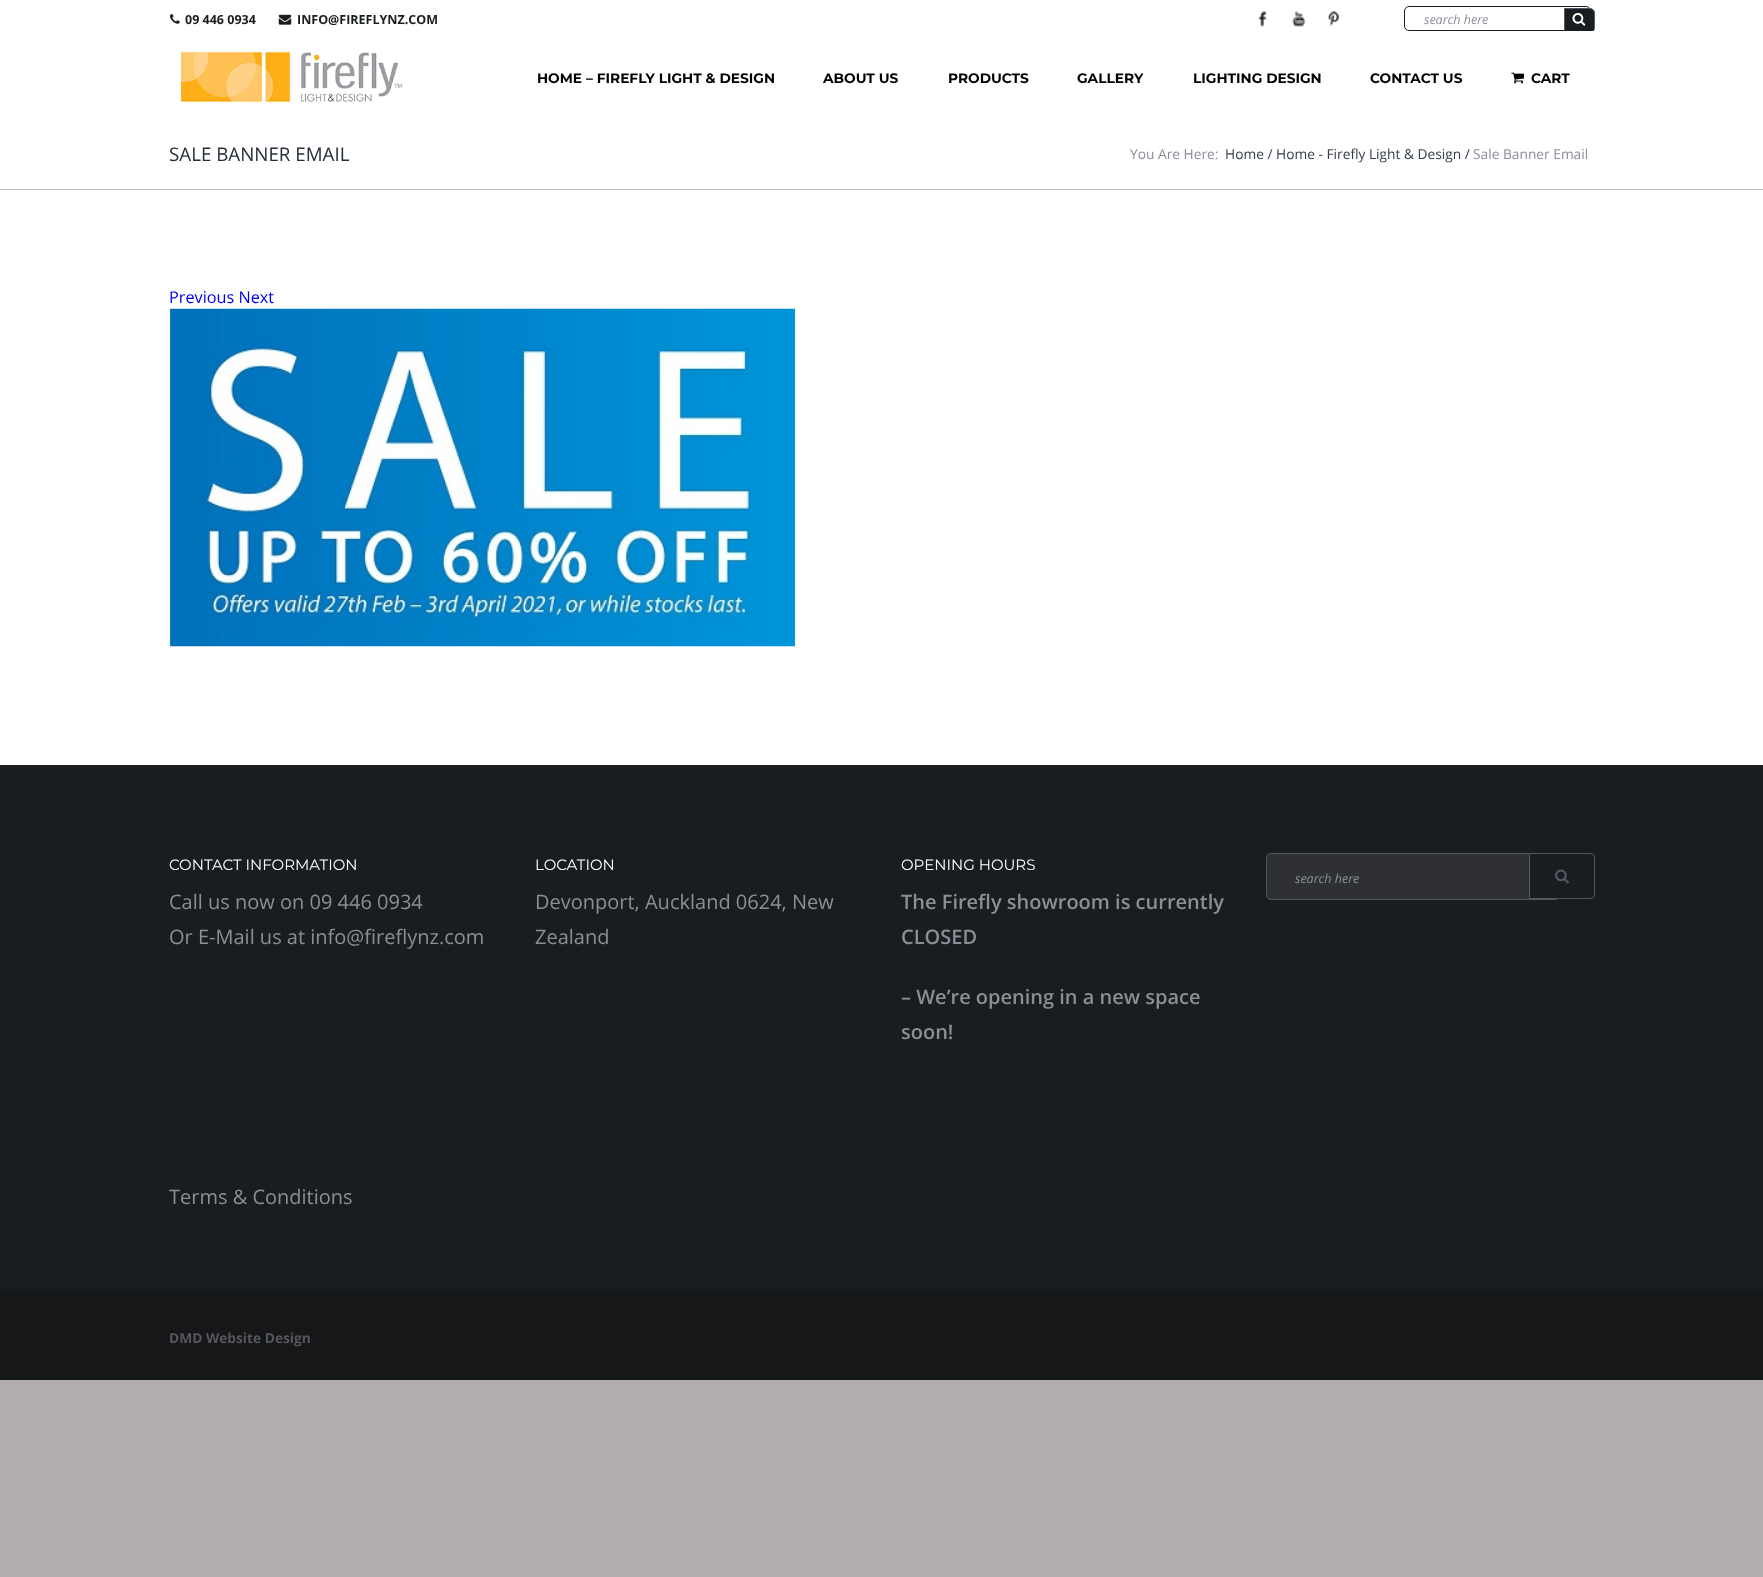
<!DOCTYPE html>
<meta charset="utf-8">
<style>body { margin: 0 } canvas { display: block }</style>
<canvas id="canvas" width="1763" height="1577"></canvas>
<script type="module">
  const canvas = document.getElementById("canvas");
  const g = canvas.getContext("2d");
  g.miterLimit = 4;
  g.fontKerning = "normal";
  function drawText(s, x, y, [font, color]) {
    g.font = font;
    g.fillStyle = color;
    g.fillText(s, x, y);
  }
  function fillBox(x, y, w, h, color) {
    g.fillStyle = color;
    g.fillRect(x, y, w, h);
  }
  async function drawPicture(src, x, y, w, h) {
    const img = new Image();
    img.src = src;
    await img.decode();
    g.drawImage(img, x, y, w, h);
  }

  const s1 = ["bold 12.5px Open Sans", "#1A1D1F"];
  const s2 = ["italic 12.5px Open Sans", "#8A8F97"];
  const s3 = ["100 13.75px Montserrat", "#000000"];
  const s4 = ["18.75px Open Sans", "#262F3A"];
  const s5 = ["13.75px Open Sans", "#8A8F97"];
  const s6 = ["13.75px Open Sans", "#353D4D"];
  const s7 = ["16.25px Open Sans", "#0000EE"];
  const s8 = ["100 15px 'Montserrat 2'", "#FFFFFF"];
  const s9 = ["20px Open Sans", "#8A8F97"];
  const s10 = ["600 20px Open Sans", "#8A8F97"];
  const s11 = ["bold 13.75px Open Sans", "#55575B"];

  fillBox(0, 0, 1763, 1577, "#B3ADAD");
  fillBox(0, 0, 1763, 765, "#FFFFFF");
  await drawPicture("pic1.png", 170, 14, 10, 10);
  drawText("09 446 0934", 185, 24, s1);
  await drawPicture("pic2.png", 278, 14, 14, 11);
  drawText("INFO@FIREFLYNZ.COM", 297, 24, s1);
  await drawPicture("pic3.png", 1258, 11, 9, 16);
  await drawPicture("pic4.png", 1292, 11, 14, 16);
  await drawPicture("pic5.png", 1328, 11, 11, 16);
  g.beginPath();
  g.roundRect(1404.5, 6.5, 186, 24, 4.5);
  g.strokeStyle = "#1A1D1F";
  g.stroke();
  drawText("search here", 1424, 24, s2);
  g.save();
  g.beginPath();
  g.rect(151, 6, 1463, 25);
  g.clip();
  g.fillStyle = "#1A1D1F";
  g.beginPath();
  g.roundRect(1564.5, 8.5, 30, 24, [0, 4.5, 4.5, 0]);
  g.fill();
  g.strokeStyle = "#4F5963";
  g.stroke();
  g.restore();
  await drawPicture("pic6.png", 1572, 13, 14, 13);
  await drawPicture("pic7.png", 181, 51, 222, 51);
  drawText("HOME – FIREFLY LIGHT & DESIGN", 537, 83, s3);
  drawText("ABOUT US", 823, 83, s3);
  drawText("PRODUCTS", 948, 83, s3);
  drawText("GALLERY", 1077, 83, s3);
  drawText("LIGHTING DESIGN", 1193, 83, s3);
  drawText("CONTACT US", 1370, 83, s3);
  await drawPicture("pic8.png", 1511, 72, 13, 12);
  drawText("CART", 1531, 83, s3);
  fillBox(0, 189, 1763, 1, "#B9BCC0");
  drawText("SALE BANNER EMAIL", 169, 161, s4);
  drawText("You Are Here:", 1130, 159, s5);
  drawText("Home / Home - Firefly Light & Design /", 1225, 159, s6);
  drawText("Sale Banner Email", 1473, 159, s5);
  drawText("Previous Next", 169, 303, s7);
  await drawPicture("pic9.png", 169, 308, 626, 339);
  fillBox(0, 765, 1763, 524, "#1A1D1F");
  drawText("CONTACT INFORMATION", 169, 870, s8);
  drawText("Call us now on 09 446 0934", 169, 909, s9);
  drawText("Or E-Mail us at info@fireflynz.com", 169, 944, s9);
  drawText("Terms & Conditions", 169, 1204, s9);
  drawText("LOCATION", 535, 870, s8);
  drawText("Devonport, Auckland 0624, New", 535, 909, s9);
  drawText("Zealand", 535, 944, s9);
  drawText("OPENING HOURS", 901, 870, s8);
  drawText("The Firefly showroom is currently", 901, 909, s10);
  drawText("CLOSED", 901, 944, s10);
  drawText("– We’re opening in a new space", 901, 1004, s10);
  drawText("soon!", 901, 1039, s10);
  g.fillStyle = "#2F3034";
  g.beginPath();
  g.roundRect(1266.5, 853.5, 293, 46, 4.5);
  g.fill();
  g.strokeStyle = "#55575B";
  g.stroke();
  drawText("search here", 1295, 883, s2);
  g.fillStyle = "#1A1D1F";
  g.beginPath();
  g.roundRect(1529.5, 853.5, 65, 45, [0, 4.5, 4.5, 0]);
  g.fill();
  g.strokeStyle = "#4F5963";
  g.stroke();
  await drawPicture("pic10.png", 1555, 869, 14, 15);
  fillBox(0, 1289, 1763, 91, "#151718");
  drawText("DMD Website Design", 169, 1343, s11);
</script>
